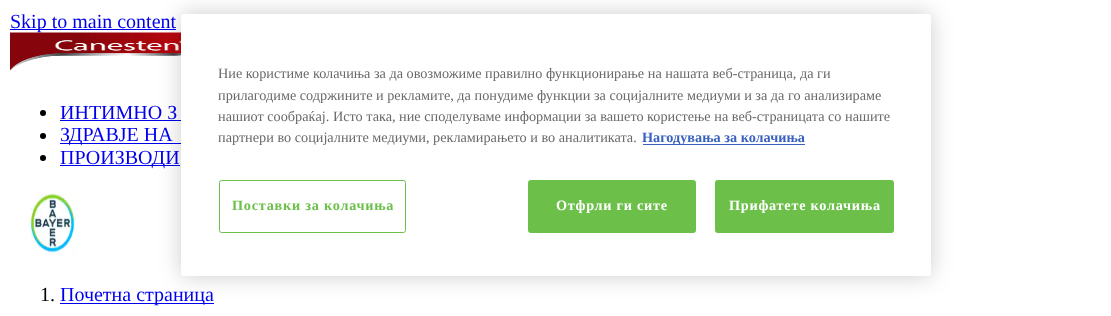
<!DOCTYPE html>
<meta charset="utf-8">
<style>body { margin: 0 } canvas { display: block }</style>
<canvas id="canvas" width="1111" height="316"></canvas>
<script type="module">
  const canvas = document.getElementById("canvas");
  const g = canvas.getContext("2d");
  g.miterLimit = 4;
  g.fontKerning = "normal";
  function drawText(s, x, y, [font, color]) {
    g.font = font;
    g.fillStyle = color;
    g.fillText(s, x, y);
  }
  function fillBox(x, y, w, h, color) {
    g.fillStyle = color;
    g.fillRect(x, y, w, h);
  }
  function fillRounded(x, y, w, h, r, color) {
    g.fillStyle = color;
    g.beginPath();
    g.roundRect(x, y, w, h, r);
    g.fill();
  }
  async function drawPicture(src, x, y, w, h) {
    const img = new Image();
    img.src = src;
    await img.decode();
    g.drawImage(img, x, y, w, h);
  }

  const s1 = ["20px Liberation Serif", "#0000EE"];
  const s2 = ["20px Liberation Serif", "#000000"];
  const s3 = ["14.25px Liberation Serif", "#696969"];
  const s4 = ["bold 14.25px Liberation Serif", "#3860BE"];
  const s5 = ["bold 14.25px Liberation Serif", "#6CC04A"];
  const s6 = ["bold 14.25px Liberation Serif", "#FFFFFF"];

  fillBox(0, 0, 1111, 316, "#FFFFFF");
  fillBox(10, 29, 166, 1, "#0000EE");
  drawText("Skip to main content", 10, 28, s1);
  await drawPicture("pic1.png", 10, 32, 171, 39);
  g.fillStyle = "#000000";
  g.beginPath();
  g.arc(43, 113, 3, 0, Math.PI * 2);
  g.fill();
  drawText("ИНТИМНО З", 60, 119, s1);
  fillBox(60, 120, 121, 1, "#0000EE");
  g.fillStyle = "#000000";
  g.beginPath();
  g.arc(43, 136, 3, 0, Math.PI * 2);
  g.fill();
  fillBox(60, 143, 121, 1, "#0000EE");
  drawText("ЗДРАВЈЕ НА", 60, 141, s1);
  g.fillStyle = "#000000";
  g.beginPath();
  g.arc(43, 158, 3, 0, Math.PI * 2);
  g.fill();
  fillBox(60, 165, 120, 1, "#0000EE");
  drawText("ПРОИЗВОДИ", 60, 164, s1);
  await drawPicture("pic2.png", 30, 193, 47, 62);
  drawText("1.", 40, 301, s2);
  fillBox(60, 303, 154, 1, "#0000EE");
  drawText("Почетна страница", 60, 301, s1);
  g.fillStyle = "rgba(0, 0, 0, 0.2)";
  g.filter = "blur(11px)";
  g.beginPath();
  g.roundRect(181, 14, 750, 262, 3);
  g.fill();
  g.filter = "none";
  fillRounded(181, 14, 750, 262, 3, "#FFFFFF");
  drawText("Ние користиме колачиња за да овозможиме правилно функционирање на нашата веб-страница, да ги", 218, 78, s3);
  drawText("прилагодиме содржините и рекламите, да понудиме функции за социјалните медиуми и за да го анализираме", 218, 100, s3);
  drawText("нашиот сообраќај. Исто така, ние споделуваме информации за вашето користење на веб-страницата со нашите", 218, 121, s3);
  drawText("партнери во социјалните медиуми, рекламирањето и во аналитиката.", 218, 142, s3);
  fillBox(643, 144, 162, 1, "#3860BE");
  drawText("Нагодувања за колачиња", 642, 142, s4);
  g.beginPath();
  g.roundRect(219.5, 180.5, 186, 52, 2);
  g.strokeStyle = "#6CC04A";
  g.stroke();
  g.letterSpacing = "0.75px";
  drawText("Поставки за колачиња", 232, 210, s5);
  g.beginPath();
  g.roundRect(528.5, 180.5, 167, 52, 2);
  g.fill();
  g.stroke();
  drawText("Отфрли ги сите", 556, 210, s6);
  g.fillStyle = "#6CC04A";
  g.beginPath();
  g.roundRect(715.5, 180.5, 178, 52, 2);
  g.fill();
  g.stroke();
  drawText("Прифатете колачиња", 729, 210, s6);
</script>
